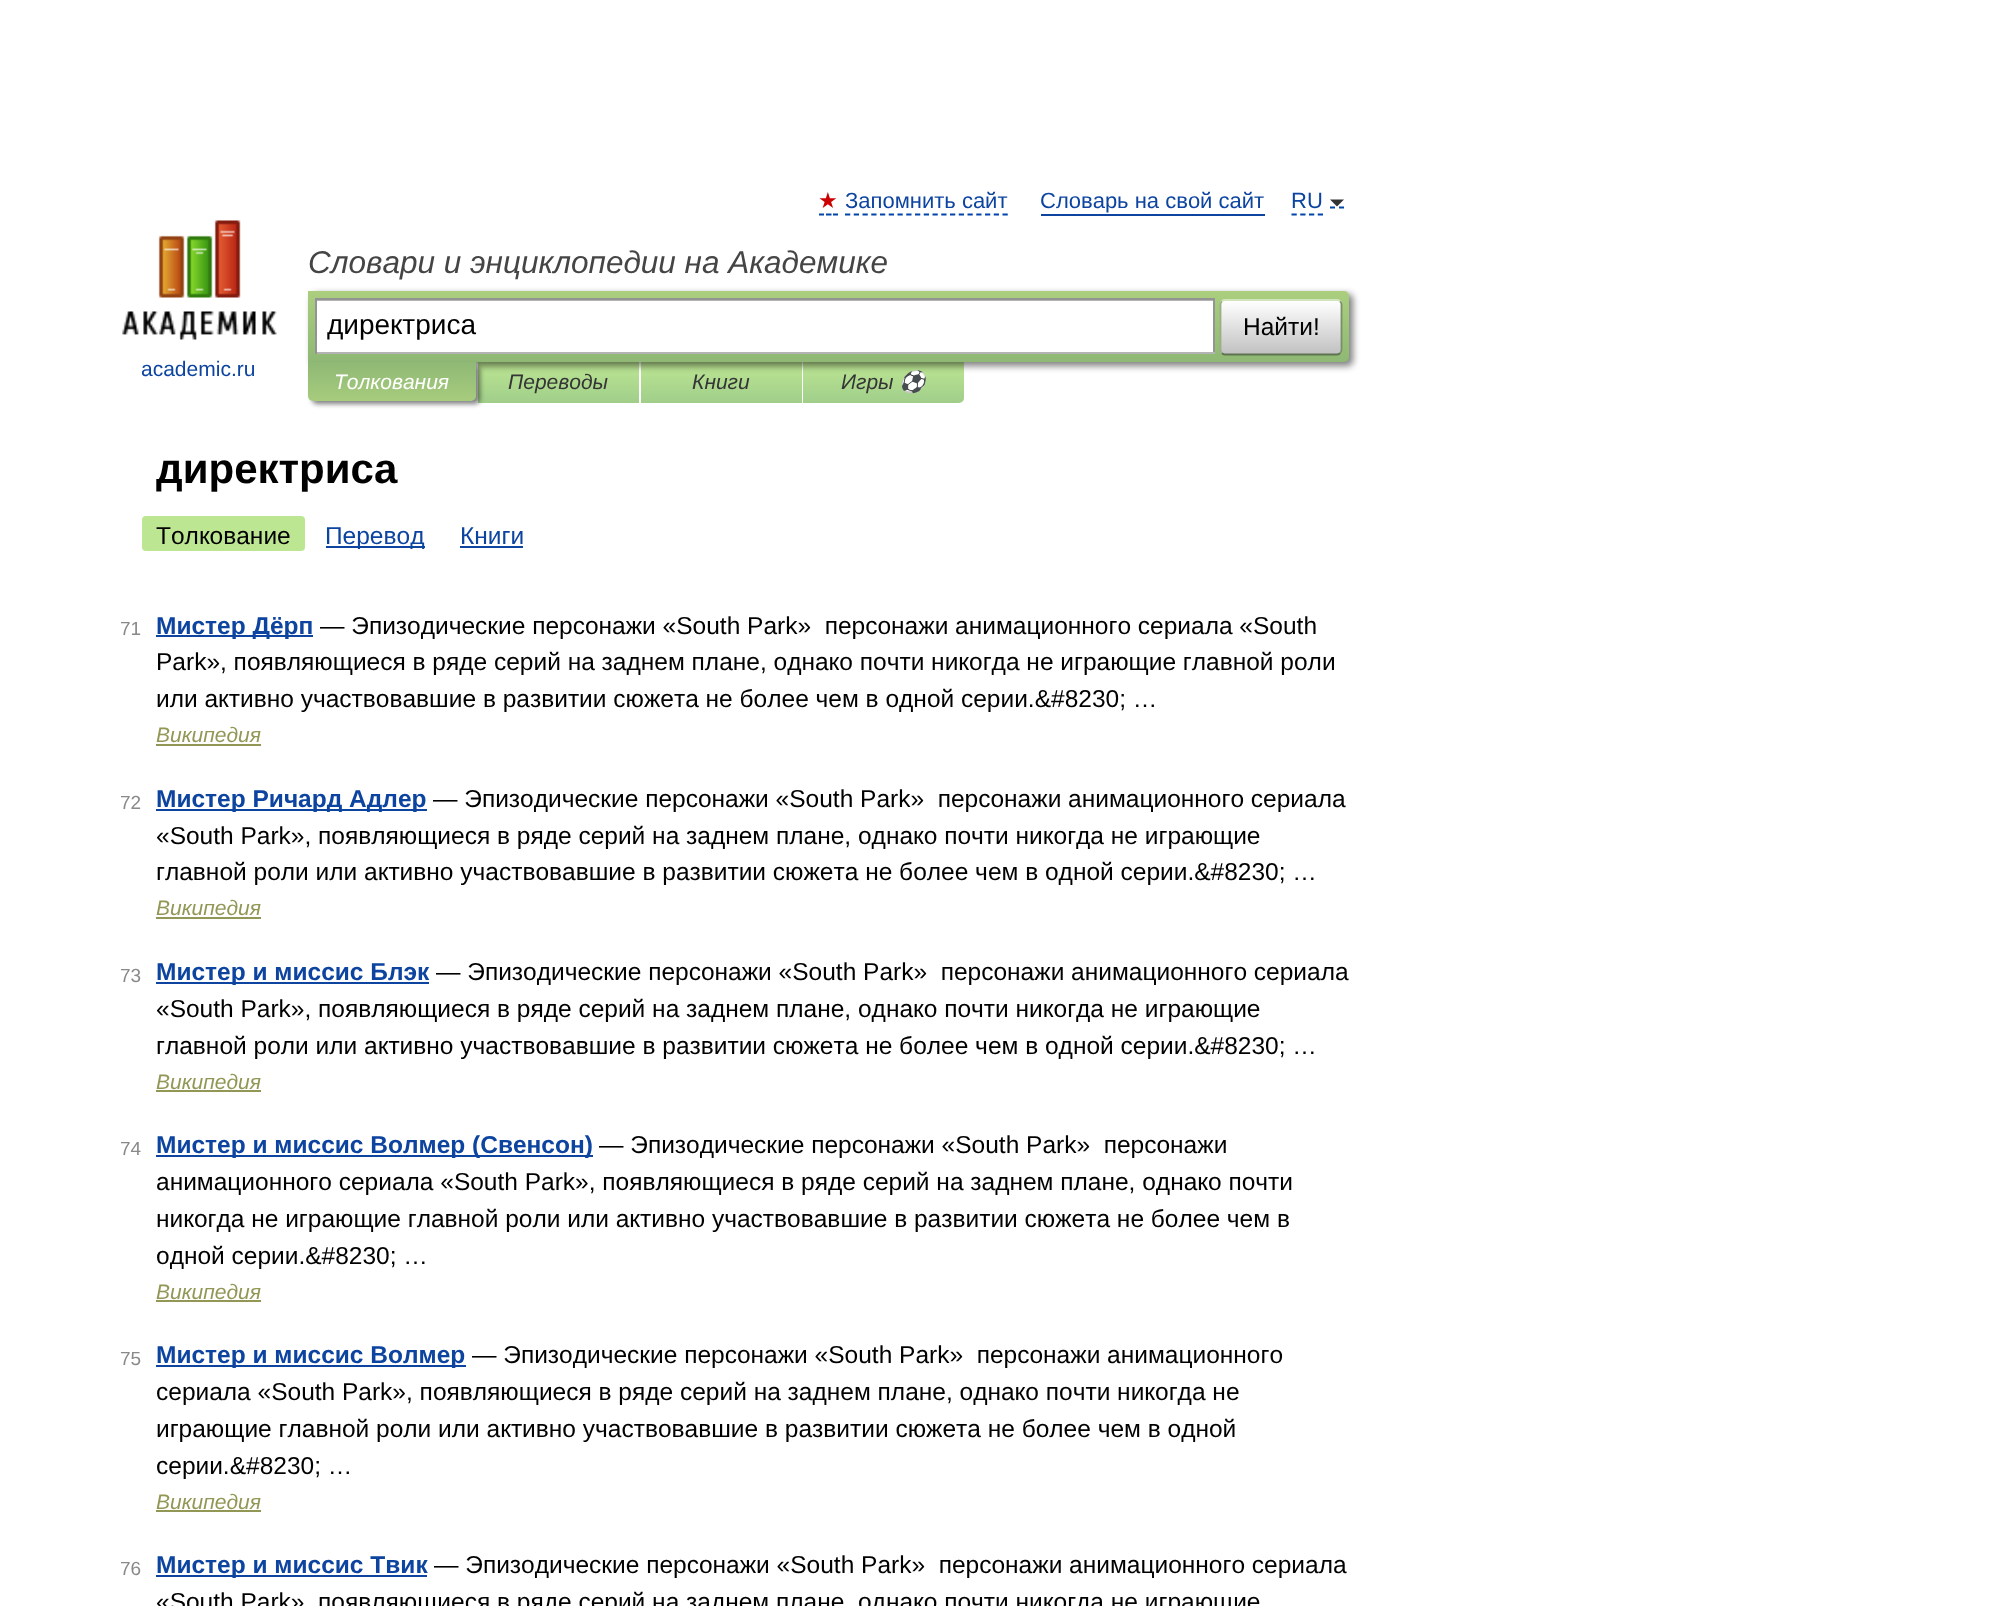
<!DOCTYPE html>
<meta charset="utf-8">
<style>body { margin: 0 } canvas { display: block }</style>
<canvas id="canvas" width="2016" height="1606"></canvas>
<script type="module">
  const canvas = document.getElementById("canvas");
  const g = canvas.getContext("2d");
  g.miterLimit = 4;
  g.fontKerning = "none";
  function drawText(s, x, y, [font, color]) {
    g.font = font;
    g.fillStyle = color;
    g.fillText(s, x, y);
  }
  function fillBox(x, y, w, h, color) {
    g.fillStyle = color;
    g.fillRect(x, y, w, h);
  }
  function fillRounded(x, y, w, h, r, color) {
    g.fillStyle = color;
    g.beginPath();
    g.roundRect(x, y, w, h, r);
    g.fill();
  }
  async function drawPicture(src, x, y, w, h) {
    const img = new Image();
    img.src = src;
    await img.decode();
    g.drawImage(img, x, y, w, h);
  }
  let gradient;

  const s1 = ["22px DejaVu Sans", "#CC0000"];
  const s2 = ["22px Liberation Sans", "#0D44A0"];
  const s3 = ["italic 31.5px Liberation Sans", "#454545"];
  const s4 = ["28px Liberation Sans", "#000000"];
  const s5 = ["24.5px Liberation Sans", "#000000"];
  const s6 = ["21px Liberation Sans", "#0D44A0"];
  const s7 = ["italic 21px Liberation Sans", "#FFFFFF"];
  const s8 = ["italic 21px Liberation Sans", "#353535"];
  const s9 = ["italic 21px Noto Color Emoji", "#353535"];
  const s10 = ["bold 42px Liberation Sans", "#000000"];
  const s11 = ["24.5px Liberation Sans", "#0D44A0"];
  const s12 = ["19px Liberation Sans", "#898989"];
  const s13 = ["bold 24.5px Liberation Sans", "#0D44A0"];
  const s14 = ["italic 21px Liberation Sans", "#939756"];

  fillBox(0, 0, 2016, 1606, "#FFFFFF");
  drawText("★", 818, 208, s1);
  g.beginPath();
  g.moveTo(819, 214.5);
  g.lineTo(824, 214.5);
  g.moveTo(826, 214.5);
  g.lineTo(831.5, 214.5);
  g.moveTo(833, 214.5);
  g.lineTo(838, 214.5);
  g.strokeStyle = "#0044AA";
  g.lineWidth = 1.8;
  g.stroke();
  drawText("Запомнить сайт", 845, 208, s2);
  g.beginPath();
  g.moveTo(845, 214.5);
  g.lineTo(1008, 214.5);
  g.setLineDash([5.25, 3.5]);
  g.stroke();
  drawText("Словарь на свой сайт", 1040, 208, s2);
  fillBox(1041, 214, 224, 2, "#0D44A0");
  g.beginPath();
  g.moveTo(1291.5, 214.5);
  g.lineTo(1323, 214.5);
  g.stroke();
  g.beginPath();
  g.moveTo(1330, 207.5);
  g.lineTo(1335, 207.5);
  g.moveTo(1339, 207.5);
  g.lineTo(1344, 207.5);
  g.setLineDash([]);
  g.stroke();
  drawText("RU", 1291, 208, s2);
  g.fillStyle = "#333333";
  g.beginPath();
  g.moveTo(1330, 199.5);
  g.lineTo(1344, 199.5);
  g.lineTo(1337, 206.5);
  g.closePath();
  g.fill();
  drawText("Словари и энциклопедии на Академике", 308, 273, s3);
  gradient = g.createLinearGradient(558, 362, 558, 403);
  gradient.addColorStop(0, "#BDE693");
  gradient.addColorStop(1, "#A0CE8A");
  g.fillStyle = gradient;
  g.fillRect(478, 362, 161, 41);
  gradient = g.createLinearGradient(721, 362, 721, 403);
  gradient.addColorStop(0, "#BDE693");
  gradient.addColorStop(1, "#A0CE8A");
  g.fillStyle = gradient;
  g.fillRect(641, 362, 161, 41);
  gradient = g.createLinearGradient(884, 362, 884, 403);
  gradient.addColorStop(0, "#BDE693");
  gradient.addColorStop(1, "#A0CE8A");
  g.fillStyle = gradient;
  g.beginPath();
  g.roundRect(803, 362, 161, 41, [0, 0, 5, 0]);
  g.fill();
  g.fillStyle = "rgba(0, 0, 0, 0.5)";
  g.filter = "blur(3.5px)";
  g.beginPath();
  g.roundRect(312, 294, 1041, 72, 5);
  g.fill();
  g.filter = "none";
  gradient = g.createLinearGradient(829, 290, 829, 362);
  gradient.addColorStop(0, "#ABCF7E");
  gradient.addColorStop(1, "#8EB874");
  g.fillStyle = gradient;
  g.beginPath();
  g.roundRect(308, 291, 1041, 71, [0, 5, 5, 0]);
  g.fill();
  fillBox(317, 301, 896, 51, "#FFFFFF");
  fillBox(317, 300, 896, 1, "#B3B3B3");
  fillBox(315, 298, 900, 2, "#949494");
  fillBox(1213, 298, 2, 56, "#949494");
  fillBox(315, 352, 900, 2, "#B4B4B4");
  fillBox(315, 298, 2, 56, "#949494");
  drawText("директриса", 327, 334, s4);
  g.save();
  g.beginPath();
  g.roundRect(1220, 299, 122, 56, 5);
  g.clip();
  gradient = g.createLinearGradient(1281, 249, 1281, 301);
  gradient.addColorStop(0, "#FFFFFF");
  gradient.addColorStop(1, "#C1C1C1");
  g.fillStyle = gradient;
  g.fillRect(1220, 299, 122, 2);
  gradient = g.createLinearGradient(1281, 301, 1281, 354);
  gradient.addColorStop(0, "#FFFFFF");
  gradient.addColorStop(1, "#C1C1C1");
  g.fillStyle = gradient;
  g.fillRect(1220, 301, 122, 53);
  g.restore();
  g.beginPath();
  g.moveTo(1222, 301.5);
  g.bezierCurveTo(1222.5, 300.5, 1224, 300, 1225, 300);
  g.lineTo(1337, 300);
  g.bezierCurveTo(1338, 300, 1339.5, 300.5, 1340, 301.5);
  g.strokeStyle = "#D1E4BC";
  g.stroke();
  g.beginPath();
  g.moveTo(1340, 301.5);
  g.bezierCurveTo(1341, 302, 1341.5, 303.5, 1341.5, 304.5);
  g.lineTo(1341.5, 350);
  g.bezierCurveTo(1341.5, 351, 1341, 352.5, 1340, 353);
  g.strokeStyle = "#7A8E69";
  g.stroke();
  g.beginPath();
  g.moveTo(1340, 353);
  g.bezierCurveTo(1339.5, 354, 1338, 354.5, 1337, 354.5);
  g.lineTo(1225, 354.5);
  g.bezierCurveTo(1224, 354.5, 1222.5, 354, 1222, 353);
  g.strokeStyle = "#5D7250";
  g.stroke();
  g.beginPath();
  g.moveTo(1222, 353);
  g.bezierCurveTo(1221, 352.5, 1220.5, 351, 1220.5, 350);
  g.lineTo(1220.5, 304.5);
  g.bezierCurveTo(1220.5, 303.5, 1221, 302, 1222, 301.5);
  g.strokeStyle = "#9AAE89";
  g.stroke();
  drawText("Найти!", 1243, 335, s5);
  await drawPicture("pic1.png", 122, 220, 155, 120);
  drawText("academic.ru", 141, 376, s6);
  g.fillStyle = "rgba(0, 0, 0, 0.5)";
  g.filter = "blur(2.5px)";
  g.beginPath();
  g.roundRect(312, 366, 168, 38, 5);
  g.fill();
  g.filter = "none";
  gradient = g.createLinearGradient(392, 362, 392, 401);
  gradient.addColorStop(0, "#8FB875");
  gradient.addColorStop(1, "#A7CC7D");
  g.fillStyle = gradient;
  g.beginPath();
  g.roundRect(308, 362, 168, 39, [0, 0, 5, 5]);
  g.fill();
  drawText("Толкования", 334, 389, s7);
  drawText("Переводы", 508, 389, s8);
  drawText("Книги", 692, 389, s8);
  drawText("Игры", 841, 389, s8);
  drawText("⚽", 899, 389, s9);
  drawText("директриса", 156, 483, s10);
  fillRounded(142, 516, 163, 35, 4, "#BDE693");
  drawText("Толкование", 156, 544, s5);
  fillBox(326, 546, 99, 2, "#0D44A0");
  drawText("Перевод", 325, 544, s11);
  drawText("Книги", 460, 544, s11);
  fillBox(460, 546, 63, 2, "#0D44A0");
  drawText("71", 120, 635, s12);
  fillBox(156, 635, 157, 2, "#0D44A0");
  drawText("Мистер Дёрп", 156, 634, s13);
  drawText("— Эпизодические персонажи «South Park»  персонажи анимационного сериала «South", 320, 634, s5);
  drawText("Park», появляющиеся в ряде серий на заднем плане, однако почти никогда не играющие главной роли", 156, 670, s5);
  drawText("или активно участвовавшие в развитии сюжета не более чем в одной серии.&#8230; …", 156, 707, s5);
  drawText("Википедия", 156, 742, s14);
  fillBox(156, 744, 105, 2, "#939756");
  drawText("72", 120, 809, s12);
  fillBox(156, 809, 271, 2, "#0D44A0");
  drawText("Мистер Ричард Адлер", 156, 807, s13);
  drawText("— Эпизодические персонажи «South Park»  персонажи анимационного сериала", 433, 807, s5);
  drawText("«South Park», появляющиеся в ряде серий на заднем плане, однако почти никогда не играющие", 156, 844, s5);
  drawText("главной роли или активно участвовавшие в развитии сюжета не более чем в одной серии.&#8230; …", 156, 880, s5);
  drawText("Википедия", 156, 915, s14);
  fillBox(156, 917, 105, 2, "#939756");
  drawText("73", 120, 982, s12);
  fillBox(156, 982, 273, 2, "#0D44A0");
  drawText("Мистер и миссис Блэк", 156, 980, s13);
  drawText("— Эпизодические персонажи «South Park»  персонажи анимационного сериала", 436, 980, s5);
  drawText("«South Park», появляющиеся в ряде серий на заднем плане, однако почти никогда не играющие", 156, 1017, s5);
  drawText("главной роли или активно участвовавшие в развитии сюжета не более чем в одной серии.&#8230; …", 156, 1054, s5);
  drawText("Википедия", 156, 1089, s14);
  fillBox(156, 1090, 105, 2, "#939756");
  drawText("74", 120, 1155, s12);
  fillBox(156, 1155, 437, 2, "#0D44A0");
  drawText("Мистер и миссис Волмер (Свенсон)", 156, 1153, s13);
  drawText("— Эпизодические персонажи «South Park»  персонажи", 599, 1153, s5);
  drawText("анимационного сериала «South Park», появляющиеся в ряде серий на заднем плане, однако почти", 156, 1190, s5);
  drawText("никогда не играющие главной роли или активно участвовавшие в развитии сюжета не более чем в", 156, 1227, s5);
  drawText("одной серии.&#8230; …", 156, 1264, s5);
  drawText("Википедия", 156, 1299, s14);
  fillBox(156, 1300, 105, 2, "#939756");
  drawText("75", 120, 1365, s12);
  fillBox(156, 1365, 310, 2, "#0D44A0");
  drawText("Мистер и миссис Волмер", 156, 1363, s13);
  drawText("— Эпизодические персонажи «South Park»  персонажи анимационного", 472, 1363, s5);
  drawText("сериала «South Park», появляющиеся в ряде серий на заднем плане, однако почти никогда не", 156, 1400, s5);
  drawText("играющие главной роли или активно участвовавшие в развитии сюжета не более чем в одной", 156, 1437, s5);
  drawText("серии.&#8230; …", 156, 1474, s5);
  drawText("Википедия", 156, 1509, s14);
  fillBox(156, 1510, 105, 2, "#939756");
  drawText("76", 120, 1575, s12);
  fillBox(156, 1575, 271, 2, "#0D44A0");
  drawText("Мистер и миссис Твик", 156, 1573, s13);
  drawText("— Эпизодические персонажи «South Park»  персонажи анимационного сериала", 434, 1573, s5);
  drawText("«South Park», появляющиеся в ряде серий на заднем плане, однако почти никогда не играющие", 156, 1610, s5);
</script>
